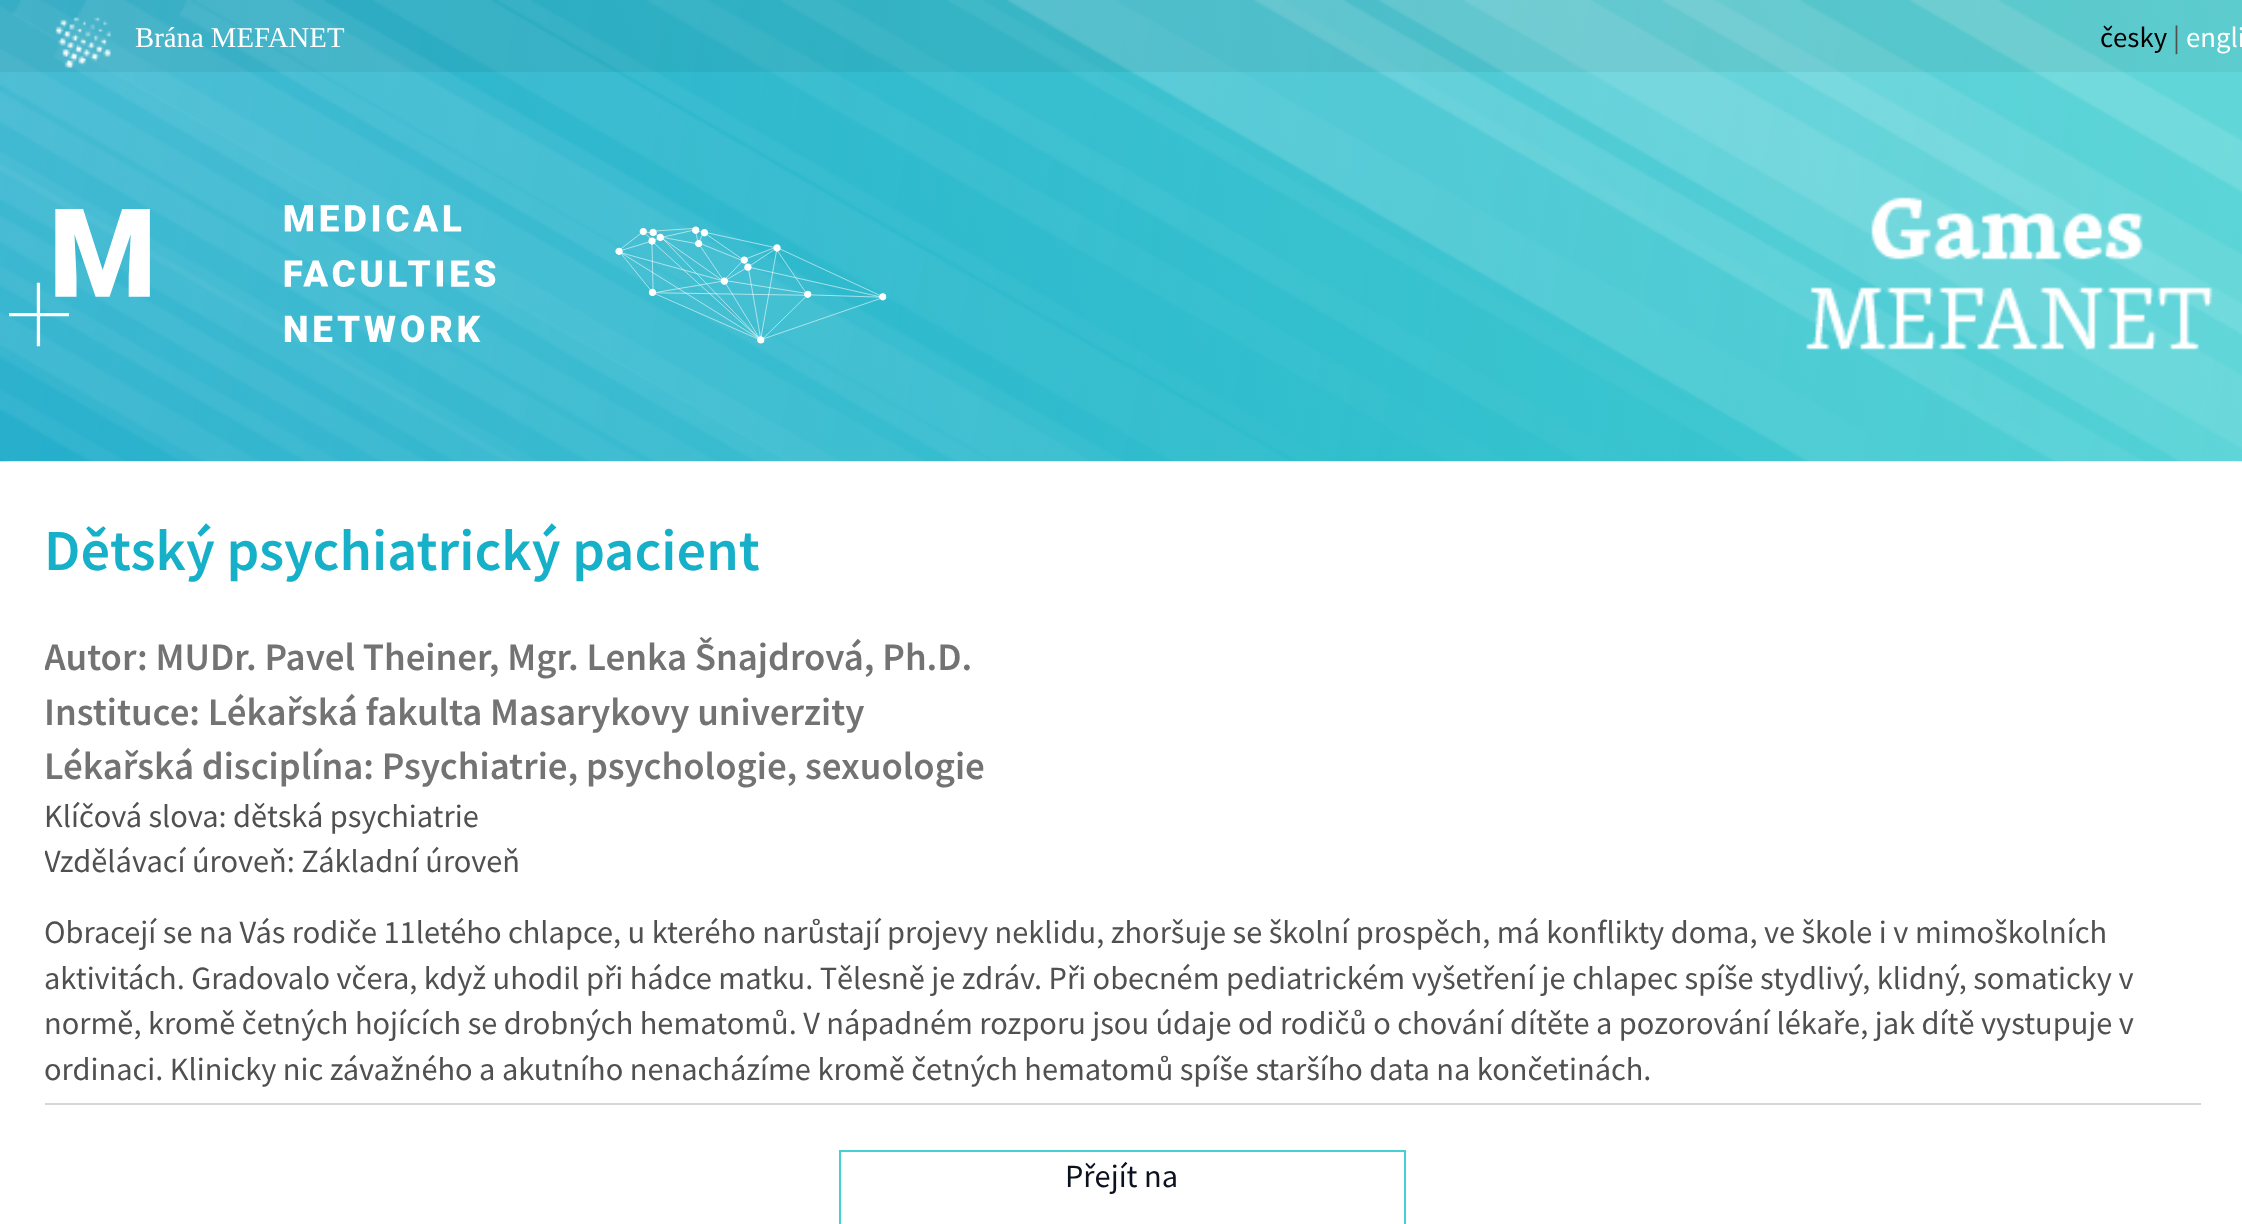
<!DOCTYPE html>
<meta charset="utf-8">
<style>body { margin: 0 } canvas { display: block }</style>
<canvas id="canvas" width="2242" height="1224"></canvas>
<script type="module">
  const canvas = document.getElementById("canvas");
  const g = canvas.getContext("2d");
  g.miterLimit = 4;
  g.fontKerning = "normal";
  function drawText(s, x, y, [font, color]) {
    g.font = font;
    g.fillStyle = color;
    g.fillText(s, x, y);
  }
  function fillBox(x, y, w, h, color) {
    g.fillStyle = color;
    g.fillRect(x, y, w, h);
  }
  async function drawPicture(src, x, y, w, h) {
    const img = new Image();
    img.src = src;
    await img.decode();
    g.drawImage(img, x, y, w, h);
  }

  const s1 = ["28.75px Liberation Serif", "#FFFFFF"];
  const s2 = ["28.75px Source Sans Pro", "#000000"];
  const s3 = ["28.75px Source Sans Pro", "#505050"];
  const s4 = ["28.75px Source Sans Pro", "#FFFFFF"];
  const s5 = ["600 58.25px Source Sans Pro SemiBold", "#16B0C8"];
  const s6 = ["600 38.9px Source Sans Pro SemiBold", "#737373"];
  const s7 = ["32.4px Source Sans Pro", "#505050"];
  const s8 = ["32.4px Source Sans Pro", "#0A111F"];

  fillBox(0, 0, 2242, 1224, "#FFFFFF");
  await drawPicture("pic1.png", 0, 0, 2242, 462);
  fillBox(0, 0, 2242, 72, "rgba(0, 0, 0, 0.05)");
  await drawPicture("pic2.png", 55, 17, 56, 52);
  drawText("Brána MEFANET", 135, 47, s1);
  drawText("česky", 2100, 47, s2);
  drawText("|", 2173, 47, s3);
  drawText("engli", 2186, 47, s4);
  await drawPicture("pic3.png", 9, 205, 878, 142);
  await drawPicture("pic4.png", 1806, 197, 407, 155);
  await drawPicture("pic5.png", 9, 461, 2228, 1);
  drawText("Dětský psychiatrický pacient", 44, 570, s5);
  g.save();
  g.beginPath();
  g.rect(45, 461, 2156, 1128);
  g.clip();
  drawText("Autor: MUDr. Pavel Theiner, Mgr. Lenka Šnajdrová, Ph.D.", 44, 670, s6);
  g.restore();
  drawText("Instituce: Lékařská fakulta Masarykovy univerzity", 44, 725, s6);
  drawText("Lékařská disciplína: Psychiatrie, psychologie, sexuologie", 44, 779, s6);
  drawText("Klíčová slova: dětská psychiatrie", 44, 827, s7);
  g.save();
  g.beginPath();
  g.rect(45, 461, 2156, 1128);
  g.clip();
  drawText("Vzdělávací úroveň: Základní úroveň", 44, 872, s7);
  g.restore();
  drawText("Obracejí se na Vás rodiče 11letého chlapce, u kterého narůstají projevy neklidu, zhoršuje se školní prospěch, má konflikty doma, ve škole i v mimoškolních", 44, 943, s7);
  drawText("aktivitách. Gradovalo včera, když uhodil při hádce matku. Tělesně je zdráv. Při obecném pediatrickém vyšetření je chlapec spíše stydlivý, klidný, somaticky v", 44, 989, s7);
  drawText("normě, kromě četných hojících se drobných hematomů. V nápadném rozporu jsou údaje od rodičů o chování dítěte a pozorování lékaře, jak dítě vystupuje v", 44, 1034, s7);
  drawText("ordinaci. Klinicky nic závažného a akutního nenacházíme kromě četných hematomů spíše staršího data na končetinách.", 44, 1080, s7);
  fillBox(45, 1103, 2156, 2, "#D6D6D6");
  g.strokeStyle = "#45D0D2";
  g.lineWidth = 2;
  g.strokeRect(840, 1151, 565, 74);
  drawText("Přejít na", 1065, 1187, s8);
</script>
